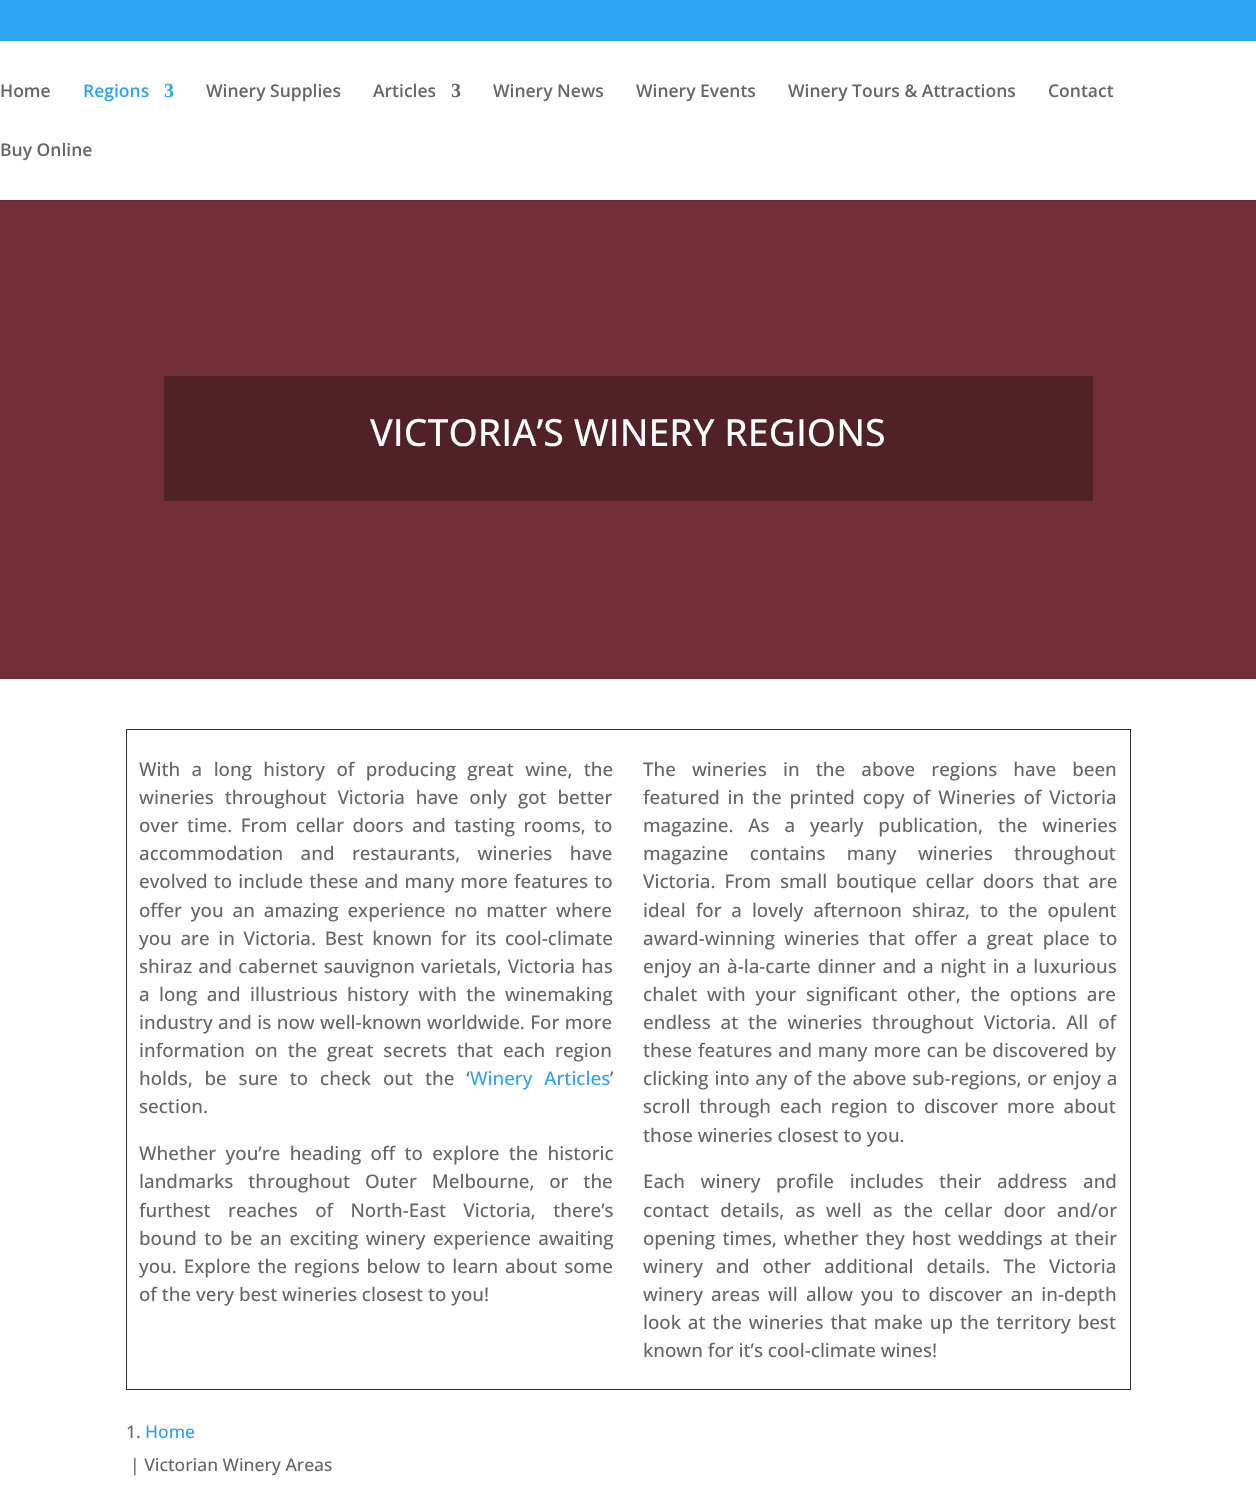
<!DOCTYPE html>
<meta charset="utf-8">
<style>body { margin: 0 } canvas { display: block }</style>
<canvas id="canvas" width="1256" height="1507"></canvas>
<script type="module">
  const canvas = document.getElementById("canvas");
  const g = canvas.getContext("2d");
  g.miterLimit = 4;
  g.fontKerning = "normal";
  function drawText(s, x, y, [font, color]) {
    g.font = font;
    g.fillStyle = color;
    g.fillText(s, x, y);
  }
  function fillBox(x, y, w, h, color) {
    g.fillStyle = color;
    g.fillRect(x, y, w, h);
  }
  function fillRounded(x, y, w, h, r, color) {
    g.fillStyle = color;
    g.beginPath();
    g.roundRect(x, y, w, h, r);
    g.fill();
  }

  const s1 = ["600 17.5px Open Sans", "#666666"];
  const s2 = ["600 17.5px Open Sans", "#2EA3F2"];
  const s3 = ["bold 20px Liberation Serif", "#2EA3F2"];
  const s4 = ["bold 20px Liberation Serif", "#666666"];
  const s5 = ["500 37.5px Open Sans", "#FFFFFF"];
  const s6 = ["500 18.75px Open Sans", "#666666"];
  const s7 = ["500 18.75px Open Sans", "#2EA3F2"];
  const s8 = ["500 17.5px Open Sans", "#666666"];
  const s9 = ["500 17.5px Open Sans", "#2EA3F2"];

  fillBox(0, 0, 1256, 1507, "#FFFFFF");
  fillBox(0, 0, 1256, 41, "#2EA3F2");
  fillBox(0, 200, 1256, 1, "#672A32");
  drawText("Home", 0, 97, s1);
  drawText("Regions", 83, 97, s2);
  drawText("3", 164, 97, s3);
  drawText("Winery Supplies", 206, 97, s1);
  drawText("Articles", 373, 97, s1);
  drawText("3", 451, 97, s4);
  drawText("Winery News", 493, 97, s1);
  drawText("Winery Events", 636, 97, s1);
  drawText("Winery Tours & Attractions", 788, 97, s1);
  drawText("Contact", 1048, 97, s1);
  drawText("Buy Online", 0, 156, s1);
  fillBox(0, 201, 1256, 478, "#722F37");
  fillRounded(164, 376, 929, 125, 1, "#502127");
  drawText("VICTORIA’S WINERY REGIONS", 370, 446, s5);
  g.strokeStyle = "#333333";
  g.strokeRect(126.5, 729.5, 1004, 660);
  g.wordSpacing = "6.5px";
  drawText("With a long history of producing great wine, the", 139, 776, s6);
  g.wordSpacing = "6px";
  drawText("wineries throughout Victoria have only got better", 139, 804, s6);
  g.wordSpacing = "3.5px";
  drawText("over time. From cellar doors and tasting rooms, to", 139, 832, s6);
  g.wordSpacing = "12.5px";
  drawText("accommodation and restaurants, wineries have", 139, 860, s6);
  g.wordSpacing = "1.25px";
  drawText("evolved to include these and many more features to", 139, 888, s6);
  g.wordSpacing = "4px";
  drawText("offer you an amazing experience no matter where", 139, 917, s6);
  g.wordSpacing = "3.75px";
  drawText("you are in Victoria. Best known for its cool-climate", 139, 945, s6);
  g.wordSpacing = "1.25px";
  drawText("shiraz and cabernet sauvignon varietals, Victoria has", 139, 973, s6);
  g.wordSpacing = "4.5px";
  drawText("a long and illustrious history with the winemaking", 139, 1001, s6);
  g.wordSpacing = "0.5px";
  drawText("industry and is now well-known worldwide. For more", 139, 1029, s6);
  g.wordSpacing = "5px";
  drawText("information on the great secrets that each region", 139, 1057, s6);
  g.wordSpacing = "7px";
  drawText("holds, be sure to check out the ‘", 139, 1085, s6);
  drawText("Winery Articles", 470, 1085, s7);
  g.wordSpacing = "0px";
  drawText("’", 610, 1085, s6);
  drawText("section.", 139, 1113, s6);
  g.wordSpacing = "4.5px";
  drawText("Whether you’re heading off to explore the historic", 139, 1160, s6);
  g.wordSpacing = "10px";
  drawText("landmarks throughout Outer Melbourne, or the", 139, 1188, s6);
  g.wordSpacing = "12.5px";
  drawText("furthest reaches of North-East Victoria, there’s", 139, 1217, s6);
  g.wordSpacing = "2.5px";
  drawText("bound to be an exciting winery experience awaiting", 139, 1245, s6);
  g.wordSpacing = "2px";
  drawText("you. Explore the regions below to learn about some", 139, 1273, s6);
  g.wordSpacing = "0px";
  drawText("of the very best wineries closest to you!", 139, 1301, s6);
  g.wordSpacing = "11.25px";
  drawText("The wineries in the above regions have been", 643, 776, s6);
  g.wordSpacing = "3px";
  drawText("featured in the printed copy of Wineries of Victoria", 643, 804, s6);
  g.wordSpacing = "10px";
  drawText("magazine. As a yearly publication, the wineries", 643, 832, s6);
  g.wordSpacing = "16.5px";
  drawText("magazine contains many wineries throughout", 643, 860, s6);
  g.wordSpacing = "4px";
  drawText("Victoria. From small boutique cellar doors that are", 643, 888, s6);
  g.wordSpacing = "5px";
  drawText("ideal for a lovely afternoon shiraz, to the opulent", 643, 917, s6);
  g.wordSpacing = "4.5px";
  drawText("award-winning wineries that offer a great place to", 643, 945, s6);
  g.wordSpacing = "1.75px";
  drawText("enjoy an à-la-carte dinner and a night in a luxurious", 643, 973, s6);
  g.wordSpacing = "5px";
  drawText("chalet with your significant other, the options are", 643, 1001, s6);
  drawText("endless at the wineries throughout Victoria. All of", 643, 1029, s6);
  g.wordSpacing = "1px";
  drawText("these features and many more can be discovered by", 643, 1057, s6);
  drawText("clicking into any of the above sub-regions, or enjoy a", 643, 1085, s6);
  g.wordSpacing = "4px";
  drawText("scroll through each region to discover more about", 643, 1113, s6);
  g.wordSpacing = "0px";
  drawText("those wineries closest to you.", 643, 1142, s6);
  g.wordSpacing = "10.75px";
  drawText("Each winery profile includes their address and", 643, 1188, s6);
  g.wordSpacing = "6.25px";
  drawText("contact details, as well as the cellar door and/or", 643, 1217, s6);
  g.wordSpacing = "2.25px";
  drawText("opening times, whether they host weddings at their", 643, 1245, s6);
  g.wordSpacing = "8px";
  drawText("winery and other additional details. The Victoria", 643, 1273, s6);
  g.wordSpacing = "3.25px";
  drawText("winery areas will allow you to discover an in-depth", 643, 1301, s6);
  g.wordSpacing = "2px";
  drawText("look at the wineries that make up the territory best", 643, 1329, s6);
  g.wordSpacing = "0px";
  drawText("known for it’s cool-climate wines!", 643, 1357, s6);
  drawText("1.", 126, 1438, s8);
  drawText("Home", 145, 1438, s9);
  drawText("| Victorian Winery Areas", 130, 1471, s8);
</script>
